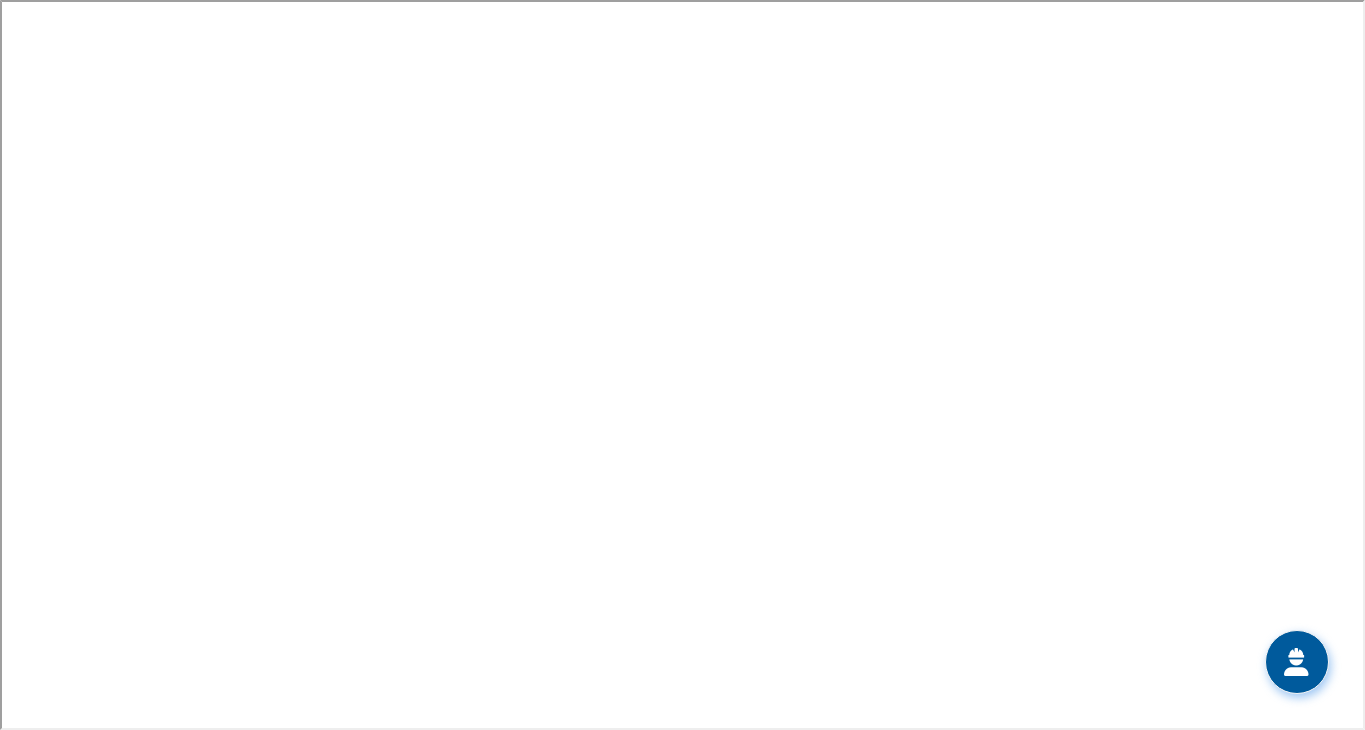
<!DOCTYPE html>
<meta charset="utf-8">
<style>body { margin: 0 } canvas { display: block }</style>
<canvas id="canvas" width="1365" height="730"></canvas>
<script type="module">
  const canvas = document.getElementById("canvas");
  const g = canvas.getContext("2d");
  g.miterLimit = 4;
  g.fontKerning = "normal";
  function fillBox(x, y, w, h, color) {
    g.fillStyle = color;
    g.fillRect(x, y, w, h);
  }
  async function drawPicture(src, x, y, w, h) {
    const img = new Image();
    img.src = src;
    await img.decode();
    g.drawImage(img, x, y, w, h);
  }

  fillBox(0, 0, 1365, 730, "#FFFFFF");
  g.fillStyle = "#9F9F9F";
  g.beginPath();
  g.moveTo(0, 0);
  g.lineTo(1365, 0);
  g.lineTo(1363, 2);
  g.lineTo(2, 2);
  g.closePath();
  g.fill();
  g.fillStyle = "#EEEEEE";
  g.beginPath();
  g.moveTo(1365, 0);
  g.lineTo(1365, 730);
  g.lineTo(1363, 728);
  g.lineTo(1363, 2);
  g.closePath();
  g.fill();
  g.beginPath();
  g.moveTo(1365, 730);
  g.lineTo(0, 730);
  g.lineTo(2, 728);
  g.lineTo(1363, 728);
  g.closePath();
  g.fill();
  g.fillStyle = "#9F9F9F";
  g.beginPath();
  g.moveTo(0, 730);
  g.lineTo(0, 0);
  g.lineTo(2, 2);
  g.lineTo(2, 728);
  g.closePath();
  g.fill();
  g.fillStyle = "rgba(64, 144, 232, 0.5)";
  g.filter = "blur(5px)";
  g.beginPath();
  g.roundRect(1267, 634, 64, 64, 32);
  g.fill();
  g.filter = "none";
  g.fillStyle = "#005A9C";
  g.beginPath();
  g.arc(1297, 662, 31.5, 0, Math.PI * 2);
  g.fill();
  g.strokeStyle = "#F5F5F5";
  g.stroke();
  await drawPicture("pic1.png", 1284, 648, 25, 28);
</script>
